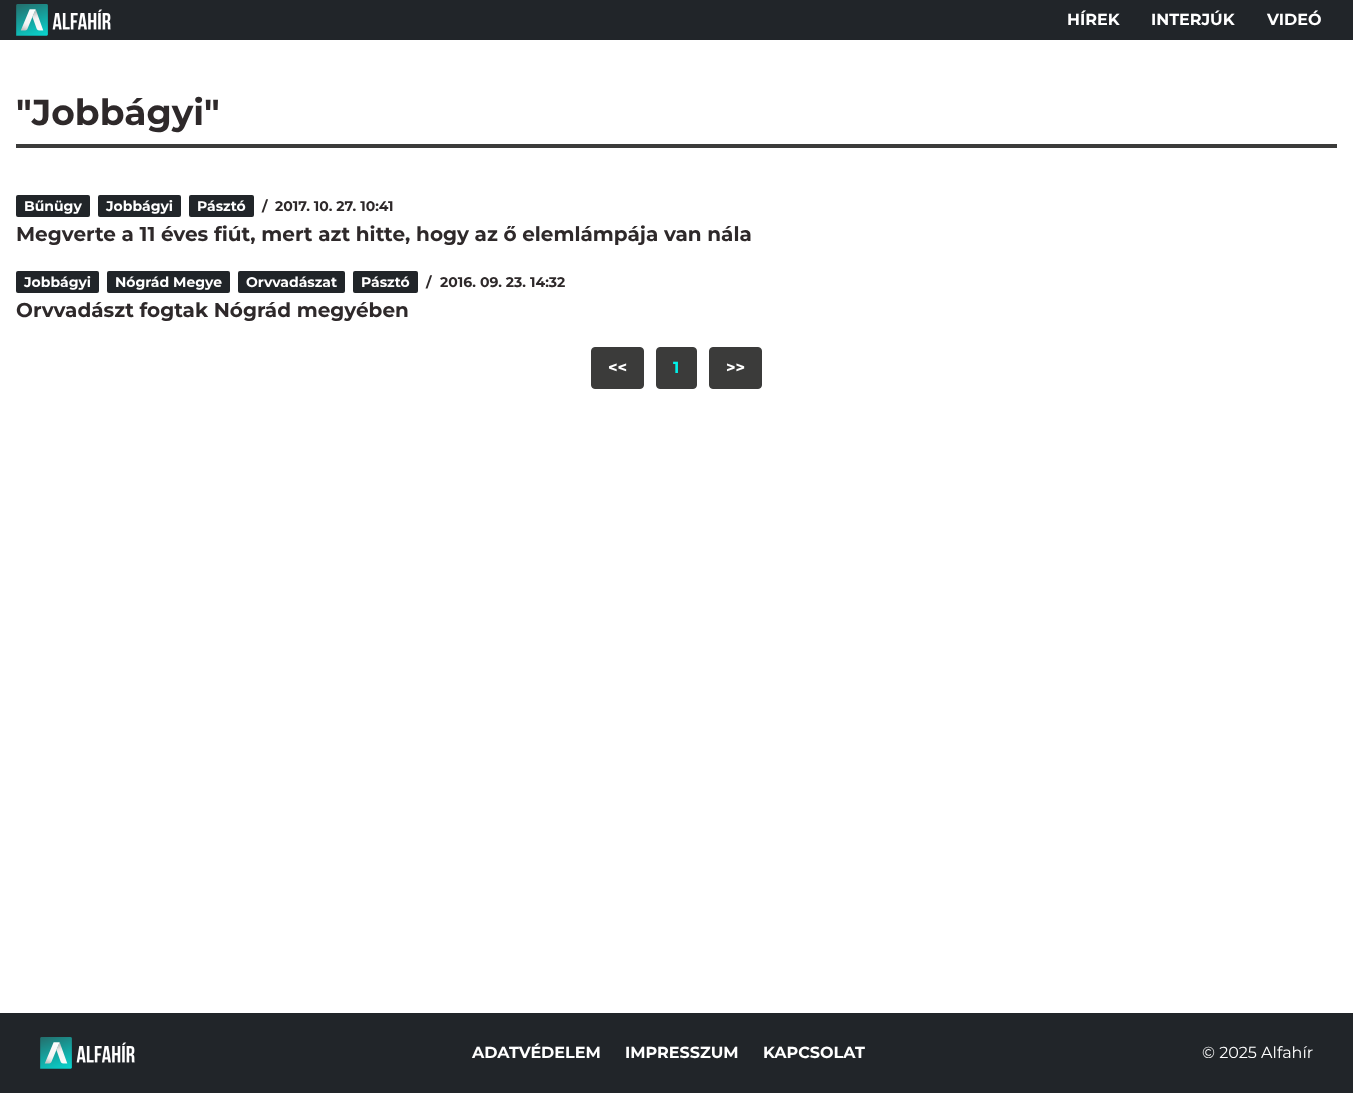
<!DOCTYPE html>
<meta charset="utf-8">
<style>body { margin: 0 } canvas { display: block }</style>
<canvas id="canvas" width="1353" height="1093"></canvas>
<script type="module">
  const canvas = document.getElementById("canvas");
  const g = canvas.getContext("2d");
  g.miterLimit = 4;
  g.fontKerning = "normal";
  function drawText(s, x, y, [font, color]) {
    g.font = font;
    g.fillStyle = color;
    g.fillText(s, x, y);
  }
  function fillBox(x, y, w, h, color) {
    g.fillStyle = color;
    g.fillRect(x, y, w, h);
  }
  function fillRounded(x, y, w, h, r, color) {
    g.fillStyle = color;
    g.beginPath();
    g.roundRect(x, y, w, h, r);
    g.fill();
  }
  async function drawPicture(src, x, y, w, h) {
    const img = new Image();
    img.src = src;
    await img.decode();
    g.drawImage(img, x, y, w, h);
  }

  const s1 = ["bold 16px Montserrat", "#FFFFFF"];
  const s2 = ["bold 36px Montserrat", "#2E292A"];
  const s3 = ["bold 14px Montserrat", "#FFFFFF"];
  const s4 = ["bold 14px Montserrat", "#2E292A"];
  const s5 = ["bold 20px Montserrat", "#2E292A"];
  const s6 = ["bold 16px Montserrat", "#00F0E8"];
  const s7 = ["16px Montserrat", "#FFFFFF"];

  fillBox(0, 0, 1353, 1093, "#FFFFFF");
  fillBox(0, 0, 1353, 40, "#212529");
  await drawPicture("pic1.png", 16, 4, 95, 32);
  drawText("HÍREK", 1067, 25, s1);
  drawText("INTERJÚK", 1151, 25, s1);
  drawText("VIDEÓ", 1267, 25, s1);
  fillBox(16, 144, 1321, 4, "#3B3B3A");
  drawText("\"Jobbágyi\"", 16, 125, s2);
  fillRounded(16, 195, 74, 22, 2, "#212529");
  drawText("Bűnügy", 24, 211, s3);
  fillRounded(98, 195, 83, 22, 2, "#212529");
  drawText("Jobbágyi", 106, 211, s3);
  fillRounded(189, 195, 65, 22, 2, "#212529");
  drawText("Pásztó", 197, 211, s3);
  drawText("/", 262, 211, s4);
  drawText("2017. 10. 27. 10:41", 275, 211, s4);
  drawText("Megverte a 11 éves fiút, mert azt hitte, hogy az ő elemlámpája van nála", 16, 241, s5);
  fillRounded(16, 271, 83, 22, 2, "#212529");
  drawText("Jobbágyi", 24, 287, s3);
  fillRounded(107, 271, 123, 22, 2, "#212529");
  drawText("Nógrád Megye", 115, 287, s3);
  fillRounded(238, 271, 107, 22, 2, "#212529");
  drawText("Orvvadászat", 246, 287, s3);
  fillRounded(353, 271, 65, 22, 2, "#212529");
  drawText("Pásztó", 361, 287, s3);
  drawText("/", 426, 287, s4);
  drawText("2016. 09. 23. 14:32", 440, 287, s4);
  drawText("Orvvadászt fogtak Nógrád megyében", 16, 317, s5);
  g.fillStyle = "#3B3B3A";
  g.beginPath();
  g.roundRect(591.5, 347.5, 52, 41, 3.5);
  g.fill();
  g.strokeStyle = "#3B3B3A";
  g.stroke();
  drawText("<<", 608, 373, s1);
  g.fillStyle = "#3B3B3A";
  g.beginPath();
  g.roundRect(656.5, 347.5, 40, 41, 3.5);
  g.fill();
  g.stroke();
  drawText("1", 673, 373, s6);
  g.fillStyle = "#3B3B3A";
  g.beginPath();
  g.roundRect(709.5, 347.5, 52, 41, 3.5);
  g.fill();
  g.stroke();
  drawText(">>", 726, 373, s1);
  fillBox(0, 1013, 1353, 80, "#212529");
  await drawPicture("pic2.png", 40, 1037, 95, 32);
  drawText("ADATVÉDELEM", 472, 1058, s1);
  drawText("IMPRESSZUM", 625, 1058, s1);
  drawText("KAPCSOLAT", 763, 1058, s1);
  drawText("© 2025 Alfahír", 1202, 1058, s7);
</script>
